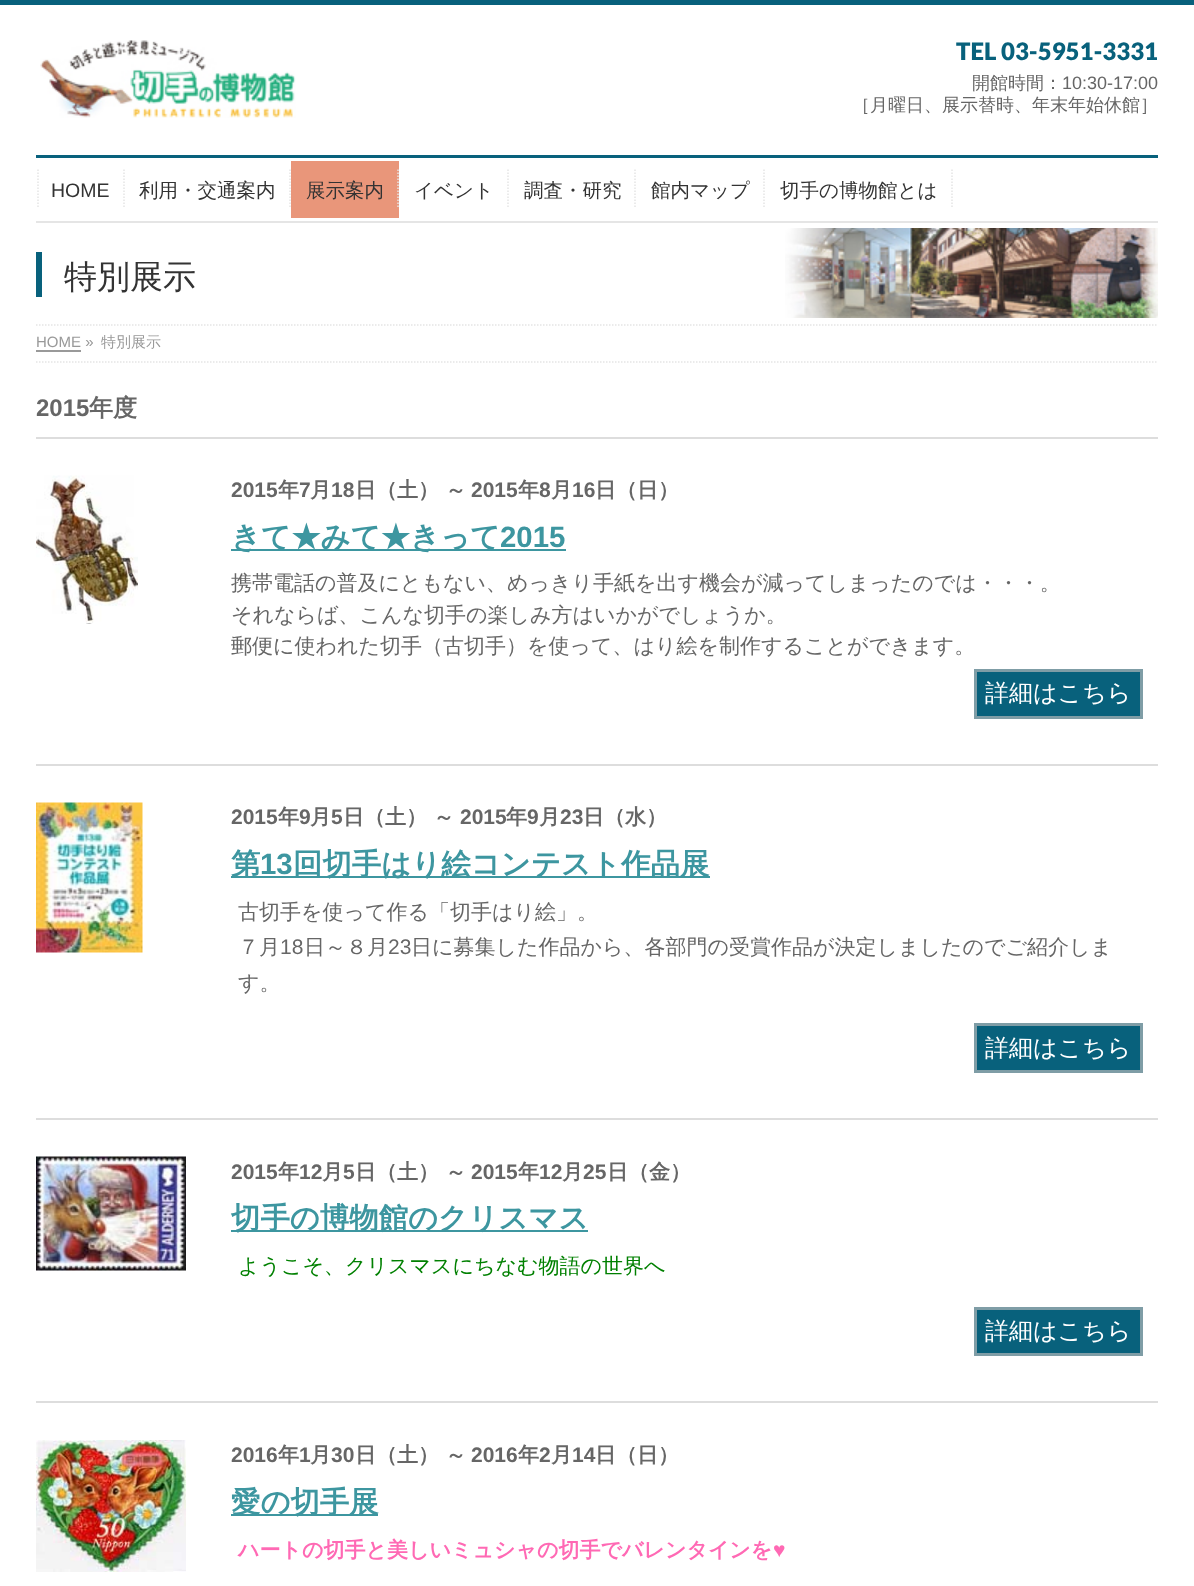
<!DOCTYPE html>
<meta charset="utf-8">
<style>body { margin: 0 } canvas { display: block }</style>
<canvas id="canvas" width="1194" height="1586"></canvas>
<script type="module">
  const canvas = document.getElementById("canvas");
  const g = canvas.getContext("2d");
  g.miterLimit = 4;
  g.fontKerning = "normal";
  function drawText(s, x, y, [font, color]) {
    g.font = font;
    g.fillStyle = color;
    g.fillText(s, x, y);
  }
  function fillBox(x, y, w, h, color) {
    g.fillStyle = color;
    g.fillRect(x, y, w, h);
  }
  async function drawPicture(src, x, y, w, h) {
    const img = new Image();
    img.src = src;
    await img.decode();
    g.drawImage(img, x, y, w, h);
  }

  const s1 = ["900 24px Lato", "#08617C"];
  const s2 = ["500 18px WenQuanYi Zen Hei", "#666666"];
  const s3 = ["18px Liberation Sans", "#666666"];
  const s4 = ["19.5px Liberation Sans", "#333333"];
  const s5 = ["500 19.5px WenQuanYi Zen Hei", "#333333"];
  const s6 = ["500 33px WenQuanYi Zen Hei", "#333333"];
  const s7 = ["15px Liberation Sans", "#999999"];
  const s8 = ["500 15px WenQuanYi Zen Hei", "#999999"];
  const s9 = ["bold 24px Liberation Sans", "#666666"];
  const s10 = ["bold 24px WenQuanYi Zen Hei", "#666666"];
  const s11 = ["bold 21px Liberation Sans", "#666666"];
  const s12 = ["bold 21px WenQuanYi Zen Hei", "#666666"];
  const s13 = ["bold 29.4px WenQuanYi Zen Hei", "#3D96A0"];
  const s14 = ["bold 29.4px Liberation Sans", "#3D96A0"];
  const s15 = ["500 21px WenQuanYi Zen Hei", "#666666"];
  const s16 = ["500 24px WenQuanYi Zen Hei", "#FFFFFF"];
  const s17 = ["21px Liberation Sans", "#666666"];
  const s18 = ["500 21px WenQuanYi Zen Hei", "#008000"];
  const s19 = ["bold 21px WenQuanYi Zen Hei", "#FF69B4"];
  const s20 = ["bold 21px Liberation Sans", "#FF69B4"];

  fillBox(0, 0, 1194, 1586, "#FFFFFF");
  fillBox(0, 0, 1194, 5, "#08617C");
  await drawPicture("pic1.png", 40, 40, 256, 78);
  drawText("TEL 03-5951-3331", 956, 60, s1);
  drawText("開館時間：", 972, 89, s2);
  drawText("10:30-17:00", 1062, 89, s3);
  drawText("［月曜日、展示替時、年末年始休館］", 852, 111, s2);
  fillBox(36, 155, 1122, 3, "#08617C");
  fillBox(36, 221, 1122, 2, "#E5E5E5");
  g.beginPath();
  g.moveTo(38, 169.5);
  g.lineTo(38, 208.5);
  g.strokeStyle = "#E5E5E5";
  g.lineWidth = 1.5;
  g.setLineDash([1.5, 1.5]);
  g.stroke();
  drawText("HOME", 51, 197, s4);
  g.beginPath();
  g.moveTo(124, 169.5);
  g.lineTo(124, 208.5);
  g.stroke();
  drawText("利用・交通案内", 139, 197, s5);
  g.beginPath();
  g.moveTo(290, 169.5);
  g.lineTo(290, 208.5);
  g.stroke();
  fillBox(291, 161, 108, 57, "#E9967A");
  drawText("展示案内", 306, 197, s5);
  g.beginPath();
  g.moveTo(398, 169.5);
  g.lineTo(398, 208.5);
  g.stroke();
  drawText("イベント", 414, 197, s5);
  g.beginPath();
  g.moveTo(508, 169.5);
  g.lineTo(508, 208.5);
  g.stroke();
  drawText("調査・研究", 524, 197, s5);
  g.beginPath();
  g.moveTo(635, 169.5);
  g.lineTo(635, 208.5);
  g.stroke();
  drawText("館内マップ", 651, 197, s5);
  g.beginPath();
  g.moveTo(764, 169.5);
  g.lineTo(764, 208.5);
  g.stroke();
  drawText("切手の博物館とは", 780, 197, s5);
  g.beginPath();
  g.moveTo(952, 169.5);
  g.lineTo(952, 208.5);
  g.stroke();
  await drawPicture("pic2.png", 785, 228, 373, 90);
  fillBox(36, 252, 6, 45, "#08617C");
  drawText("特別展示", 64, 288, s6);
  g.beginPath();
  g.moveTo(36, 325);
  g.lineTo(1158, 325);
  g.stroke();
  g.beginPath();
  g.moveTo(36, 362);
  g.lineTo(1158, 362);
  g.stroke();
  drawText("HOME »", 36, 347, s7);
  fillBox(36, 350, 45, 2, "#999999");
  drawText("特別展示", 101, 347, s8);
  drawText("2015", 36, 416, s9);
  drawText("年度", 89, 416, s10);
  fillBox(36, 437, 1122, 2, "#DDDDDD");
  await drawPicture("pic3.png", 36, 475, 102, 149);
  drawText("2015", 231, 497, s11);
  drawText("年", 278, 497, s12);
  drawText("7", 299, 497, s11);
  drawText("月", 310, 497, s12);
  drawText("18", 331, 497, s11);
  drawText("日（土） ～", 355, 497, s12);
  drawText("2015", 471, 497, s11);
  drawText("年", 518, 497, s12);
  drawText("8", 539, 497, s11);
  drawText("月", 551, 497, s12);
  drawText("16", 572, 497, s11);
  drawText("日（日）", 595, 497, s12);
  fillBox(231, 549, 335, 2, "#3D96A0");
  drawText("きて★みて★きって", 231, 547, s13);
  drawText("2015", 500, 547, s14);
  drawText("携帯電話の普及にともない、めっきり手紙を出す機会が減ってしまったのでは・・・。", 231, 590, s15);
  drawText("それならば、こんな切手の楽しみ方はいかがでしょうか。", 231, 622, s15);
  drawText("郵便に使われた切手（古切手）を使って、はり絵を制作することができます。", 231, 653, s15);
  g.fillStyle = "#08617C";
  g.beginPath();
  g.rect(975.5, 670.5, 166, 47);
  g.fill();
  g.strokeStyle = "#7F9DA6";
  g.lineWidth = 3;
  g.setLineDash([]);
  g.stroke();
  drawText("詳細はこちら", 985, 701, s16);
  fillBox(36, 764, 1122, 2, "#DDDDDD");
  await drawPicture("pic4.png", 36, 802, 107, 151);
  drawText("2015", 231, 824, s11);
  drawText("年", 278, 824, s12);
  drawText("9", 299, 824, s11);
  drawText("月", 310, 824, s12);
  drawText("5", 331, 824, s11);
  drawText("日（土） ～", 343, 824, s12);
  drawText("2015", 460, 824, s11);
  drawText("年", 506, 824, s12);
  drawText("9", 527, 824, s11);
  drawText("月", 539, 824, s12);
  drawText("23", 560, 824, s11);
  drawText("日（水）", 583, 824, s12);
  fillBox(231, 876, 479, 2, "#3D96A0");
  drawText("第", 231, 874, s13);
  drawText("13", 260, 874, s14);
  drawText("回切手はり絵コンテスト作品展", 293, 874, s13);
  drawText("古切手を使って作る「切手はり絵」。", 238, 919, s15);
  drawText("７月", 238, 954, s15);
  drawText("18", 280, 954, s17);
  drawText("日～８月", 304, 954, s15);
  drawText("23", 388, 954, s17);
  drawText("日に募集した作品から、各部門の受賞作品が決定しましたのでご紹介しま", 411, 954, s15);
  drawText("す。", 238, 990, s15);
  g.fillStyle = "#08617C";
  g.beginPath();
  g.rect(975.5, 1024.5, 166, 47);
  g.fill();
  g.stroke();
  drawText("詳細はこちら", 985, 1056, s16);
  fillBox(36, 1118, 1122, 2, "#DDDDDD");
  await drawPicture("pic5.png", 36, 1156, 150, 115);
  drawText("2015", 231, 1179, s11);
  drawText("年", 278, 1179, s12);
  drawText("12", 299, 1179, s11);
  drawText("月", 322, 1179, s12);
  drawText("5", 343, 1179, s11);
  drawText("日（土） ～", 355, 1179, s12);
  drawText("2015", 471, 1179, s11);
  drawText("年", 518, 1179, s12);
  drawText("12", 539, 1179, s11);
  drawText("月", 562, 1179, s12);
  drawText("25", 583, 1179, s11);
  drawText("日（金）", 607, 1179, s12);
  fillBox(231, 1230, 357, 2, "#3D96A0");
  drawText("切手の博物館のクリスマス", 231, 1228, s13);
  drawText("ようこそ、クリスマスにちなむ物語の世界へ", 238, 1273, s18);
  g.fillStyle = "#08617C";
  g.beginPath();
  g.rect(975.5, 1308.5, 166, 46);
  g.fill();
  g.stroke();
  drawText("詳細はこちら", 985, 1339, s16);
  fillBox(36, 1401, 1122, 2, "#DDDDDD");
  await drawPicture("pic6.png", 36, 1440, 150, 132);
  drawText("2016", 231, 1462, s11);
  drawText("年", 278, 1462, s12);
  drawText("1", 299, 1462, s11);
  drawText("月", 310, 1462, s12);
  drawText("30", 331, 1462, s11);
  drawText("日（土） ～", 355, 1462, s12);
  drawText("2016", 471, 1462, s11);
  drawText("年", 518, 1462, s12);
  drawText("2", 539, 1462, s11);
  drawText("月", 551, 1462, s12);
  drawText("14", 572, 1462, s11);
  drawText("日（日）", 595, 1462, s12);
  fillBox(231, 1514, 147, 2, "#3D96A0");
  drawText("愛の切手展", 231, 1512, s13);
  drawText("ハートの切手と美しいミュシャの切手でバレンタインを", 238, 1557, s19);
  drawText("♥", 773, 1557, s20);
</script>
